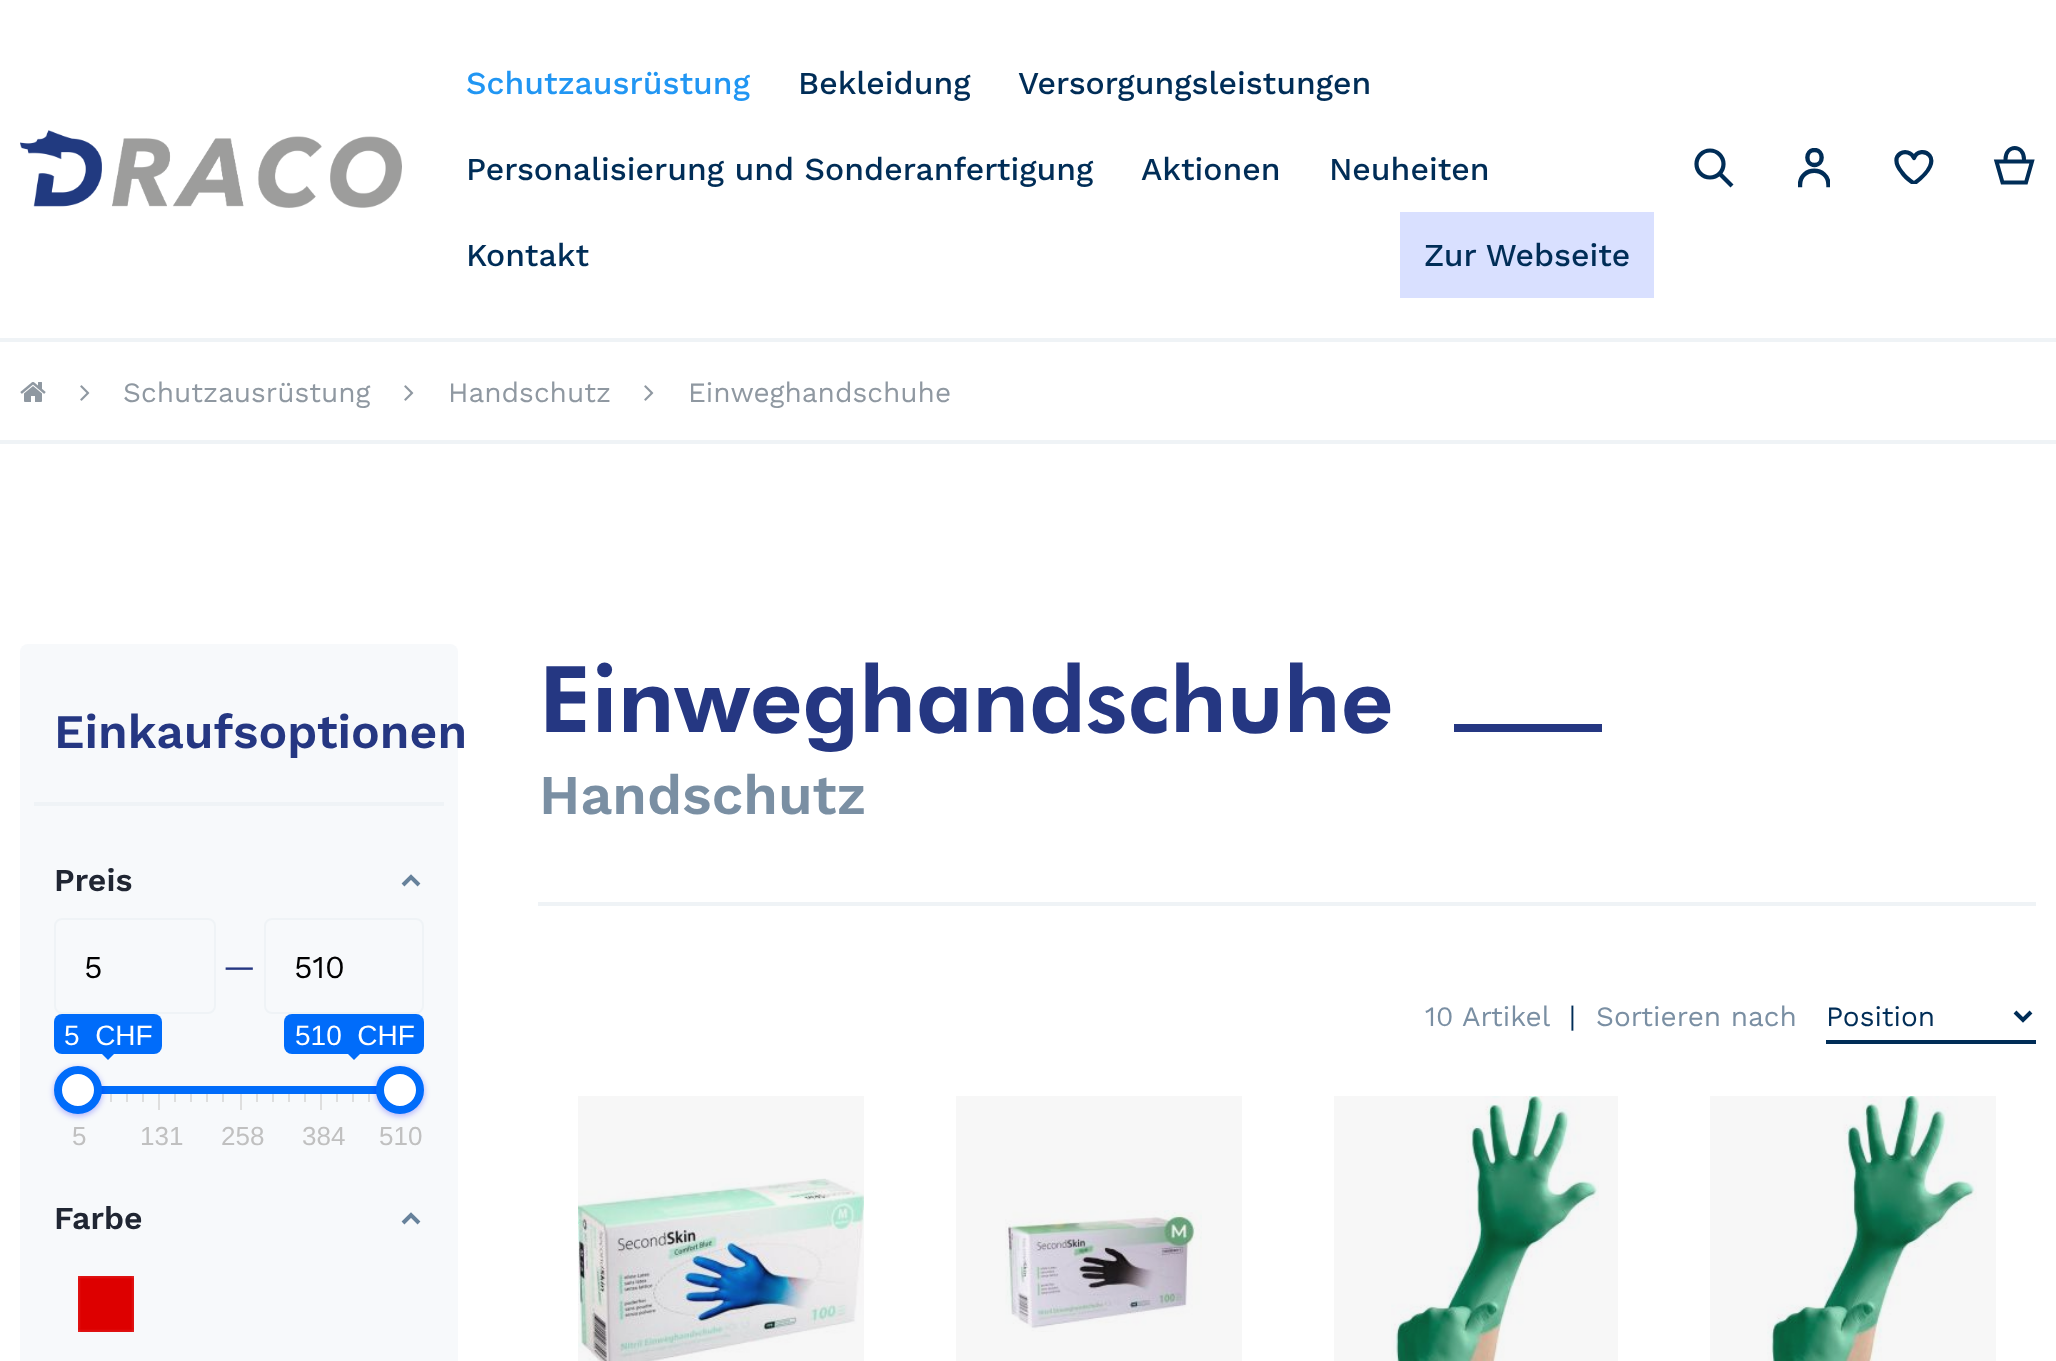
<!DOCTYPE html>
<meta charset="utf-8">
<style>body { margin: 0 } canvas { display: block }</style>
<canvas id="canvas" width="2056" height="1361"></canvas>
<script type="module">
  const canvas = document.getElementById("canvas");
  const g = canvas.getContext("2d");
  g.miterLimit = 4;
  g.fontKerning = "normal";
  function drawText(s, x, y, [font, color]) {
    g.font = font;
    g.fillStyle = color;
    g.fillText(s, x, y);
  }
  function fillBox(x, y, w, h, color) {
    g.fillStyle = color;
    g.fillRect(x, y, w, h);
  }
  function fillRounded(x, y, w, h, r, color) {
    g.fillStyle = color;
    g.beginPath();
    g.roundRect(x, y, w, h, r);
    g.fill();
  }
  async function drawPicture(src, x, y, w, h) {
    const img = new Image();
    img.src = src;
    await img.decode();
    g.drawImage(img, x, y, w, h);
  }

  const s1 = ["500 32px Work Sans", "#2196F3"];
  const s2 = ["500 32px Work Sans", "#002D57"];
  const s3 = ["28px Work Sans", "#8F98A1"];
  const s4 = ["600 48px Work Sans", "#253782"];
  const s5 = ["600 32px Work Sans", "#202633"];
  const s6 = ["32px Work Sans", "#000000"];
  const s7 = ["32px Work Sans", "#253782"];
  const s8 = ["28px Liberation Sans", "#FFFFFF"];
  const s9 = ["26px Liberation Sans", "#C0C0C0"];
  const s10 = ["900 92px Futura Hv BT", "#253782"];
  const s11 = ["600 56px Work Sans", "#7A8FA3"];
  const s12 = ["28px Work Sans", "#7A8FA3"];
  const s13 = ["28px Work Sans", "#002D57"];

  fillBox(0, 0, 2056, 1361, "#FFFFFF");
  fillBox(0, 338, 2056, 4, "#EFF3F6");
  await drawPicture("pic1.png", 20, 130, 382, 78);
  drawText("Schutzausrüstung", 466, 94, s1);
  drawText("Bekleidung", 798, 94, s2);
  drawText("Versorgungsleistungen", 1018, 94, s2);
  drawText("Personalisierung und Sonderanfertigung", 466, 180, s2);
  drawText("Aktionen", 1141, 180, s2);
  drawText("Neuheiten", 1329, 180, s2);
  drawText("Kontakt", 466, 266, s2);
  fillBox(1400, 212, 254, 86, "#D9E0FF");
  drawText("Zur Webseite", 1424, 266, s2);
  g.beginPath();
  g.arc(1710, 164, 13.5, 0, Math.PI * 2);
  g.strokeStyle = "#002D57";
  g.lineWidth = 4.2;
  g.stroke();
  g.beginPath();
  g.moveTo(1719.5, 173.5);
  g.lineTo(1732, 186);
  g.stroke();
  g.save();
  g.beginPath();
  g.rect(1798, 148, 32, 40);
  g.clip();
  g.beginPath();
  g.moveTo(1814.5, 165);
  g.bezierCurveTo(1824, 165, 1824, 150, 1814.5, 150);
  g.bezierCurveTo(1805, 150, 1805, 165, 1814.5, 165);
  g.closePath();
  g.moveTo(1800, 185);
  g.bezierCurveTo(1800, 166, 1828.5, 166, 1828.5, 185);
  g.lineWidth = 4.4;
  g.lineCap = "square";
  g.lineJoin = "round";
  g.stroke();
  g.restore();
  g.save();
  g.beginPath();
  g.rect(1894, 150, 40, 34);
  g.clip();
  g.beginPath();
  g.moveTo(1914, 158);
  g.bezierCurveTo(1919.5, 143.5, 1950, 157.5, 1914, 183.5);
  g.bezierCurveTo(1909.5, 180.5, 1905, 177, 1902, 172.5);
  g.bezierCurveTo(1886, 153.5, 1909, 146, 1914, 158);
  g.closePath();
  g.lineCap = "square";
  g.lineJoin = "round";
  g.stroke();
  g.restore();
  g.beginPath();
  g.moveTo(2005.5, 159.5);
  g.bezierCurveTo(2005.5, 144, 2024, 144, 2024, 159.5);
  g.lineWidth = 4;
  g.lineCap = "square";
  g.lineJoin = "round";
  g.stroke();
  g.beginPath();
  g.moveTo(2026, 182.5);
  g.lineTo(2032, 161.5);
  g.lineTo(1996.5, 161.5);
  g.lineTo(2002.5, 182.5);
  g.closePath();
  g.lineJoin = "miter";
  g.stroke();
  await drawPicture("pic2.png", 20, 382, 26, 20);
  await drawPicture("pic3.png", 80, 385, 10, 16);
  drawText("Schutzausrüstung", 123, 402, s3);
  await drawPicture("pic3.png", 404, 385, 10, 16);
  drawText("Handschutz", 448, 402, s3);
  await drawPicture("pic3.png", 644, 385, 10, 16);
  drawText("Einweghandschuhe", 688, 402, s3);
  fillBox(0, 440, 2056, 4, "#EFF3F6");
  fillRounded(20, 644, 438, 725, 8, "#F7F9FB");
  fillBox(34, 802, 410, 4, "#EFF3F6");
  drawText("Einkaufsoptionen", 54, 748, s4);
  drawText("Preis", 54, 891, s5);
  g.beginPath();
  g.moveTo(419, 885);
  g.lineTo(411, 877);
  g.lineTo(403, 885);
  g.strokeStyle = "#67829B";
  g.lineCap = "butt";
  g.stroke();
  g.beginPath();
  g.roundRect(55, 919, 160, 94, 7);
  g.strokeStyle = "#EFF3F6";
  g.lineWidth = 2;
  g.stroke();
  drawText("5", 84, 978, s6);
  drawText("—", 223, 977, s7);
  g.beginPath();
  g.roundRect(265, 919, 158, 94, 7);
  g.stroke();
  drawText("510", 294, 978, s6);
  fillRounded(54, 1014, 108, 40, 8, "#006CFA");
  drawText("5  CHF", 64, 1045, s8);
  g.fillStyle = "#006CFA";
  g.beginPath();
  g.moveTo(102, 1054);
  g.lineTo(114, 1054);
  g.lineTo(108, 1060);
  g.closePath();
  g.fill();
  fillRounded(284, 1014, 140, 40, 8, "#006CFA");
  drawText("510  CHF", 295, 1045, s8);
  g.fillStyle = "#006CFA";
  g.beginPath();
  g.moveTo(348, 1054);
  g.lineTo(360, 1054);
  g.lineTo(354, 1060);
  g.closePath();
  g.fill();
  fillBox(101, 1086, 276, 8, "#006CFA");
  fillBox(110, 1094, 2, 8, "#DEDEDE");
  g.fillStyle = "rgba(0, 0, 255, 0.3)";
  g.filter = "blur(3px)";
  g.beginPath();
  g.roundRect(54, 1068, 48, 48, 24);
  g.fill();
  g.filter = "none";
  g.fillStyle = "#FFFFFF";
  g.beginPath();
  g.arc(78, 1090, 20, 0, Math.PI * 2);
  g.fill();
  g.strokeStyle = "#006CFA";
  g.lineWidth = 8;
  g.stroke();
  fillBox(368, 1094, 2, 8, "#DEDEDE");
  g.fillStyle = "rgba(0, 0, 255, 0.3)";
  g.filter = "blur(3px)";
  g.beginPath();
  g.roundRect(376, 1068, 48, 48, 24);
  g.fill();
  g.filter = "none";
  g.fillStyle = "#FFFFFF";
  g.beginPath();
  g.arc(400, 1090, 20, 0, Math.PI * 2);
  g.fill();
  g.stroke();
  fillBox(126, 1094, 2, 8, "#DEDEDE");
  fillBox(142, 1094, 2, 8, "#DEDEDE");
  fillBox(158, 1094, 2, 16, "#DEDEDE");
  fillBox(174, 1094, 2, 8, "#DEDEDE");
  fillBox(190, 1094, 2, 8, "#DEDEDE");
  fillBox(206, 1094, 2, 8, "#DEDEDE");
  fillBox(222, 1094, 2, 8, "#DEDEDE");
  fillBox(240, 1094, 2, 16, "#DEDEDE");
  fillBox(256, 1094, 2, 8, "#DEDEDE");
  fillBox(272, 1094, 2, 8, "#DEDEDE");
  fillBox(288, 1094, 2, 8, "#DEDEDE");
  fillBox(304, 1094, 2, 8, "#DEDEDE");
  fillBox(320, 1094, 2, 16, "#DEDEDE");
  fillBox(336, 1094, 2, 8, "#DEDEDE");
  fillBox(352, 1094, 2, 8, "#DEDEDE");
  drawText("5", 72, 1145, s9);
  drawText("131", 140, 1145, s9);
  drawText("258", 221, 1145, s9);
  drawText("384", 302, 1145, s9);
  drawText("510", 379, 1145, s9);
  drawText("Farbe", 54, 1229, s5);
  g.beginPath();
  g.moveTo(419, 1223);
  g.lineTo(411, 1215);
  g.lineTo(403, 1223);
  g.strokeStyle = "#67829B";
  g.lineWidth = 4;
  g.stroke();
  await drawPicture("pic4.png", 78, 1276, 56, 56);
  drawText("Einweghandschuhe", 539, 732, s10);
  fillBox(1454, 724, 148, 8, "#253782");
  drawText("Handschutz", 539, 814, s11);
  fillBox(538, 902, 1498, 4, "#EFF3F6");
  drawText("10", 1425, 1026, s12);
  drawText("Artikel", 1462, 1026, s12);
  drawText("|", 1569, 1026, s13);
  drawText("Sortieren nach", 1596, 1026, s12);
  fillBox(1826, 1040, 210, 4, "#002D57");
  g.beginPath();
  g.moveTo(2031, 1012);
  g.lineTo(2023, 1020);
  g.lineTo(2015, 1012);
  g.strokeStyle = "#002D57";
  g.stroke();
  drawText("Position", 1826, 1026, s13);
  fillBox(578, 1096, 286, 82, "#F7F7F7");
  await drawPicture("pic5.png", 578, 1178, 286, 183);
  fillBox(956, 1096, 286, 265, "#F7F7F7");
  await drawPicture("pic6.png", 1005, 1210, 197, 122);
  fillBox(1334, 1096, 284, 265, "#F7F7F7");
  await drawPicture("pic7.png", 1391, 1096, 208, 265);
  fillBox(1710, 1096, 286, 265, "#F7F7F7");
  await drawPicture("pic8.png", 1767, 1096, 210, 265);
</script>
